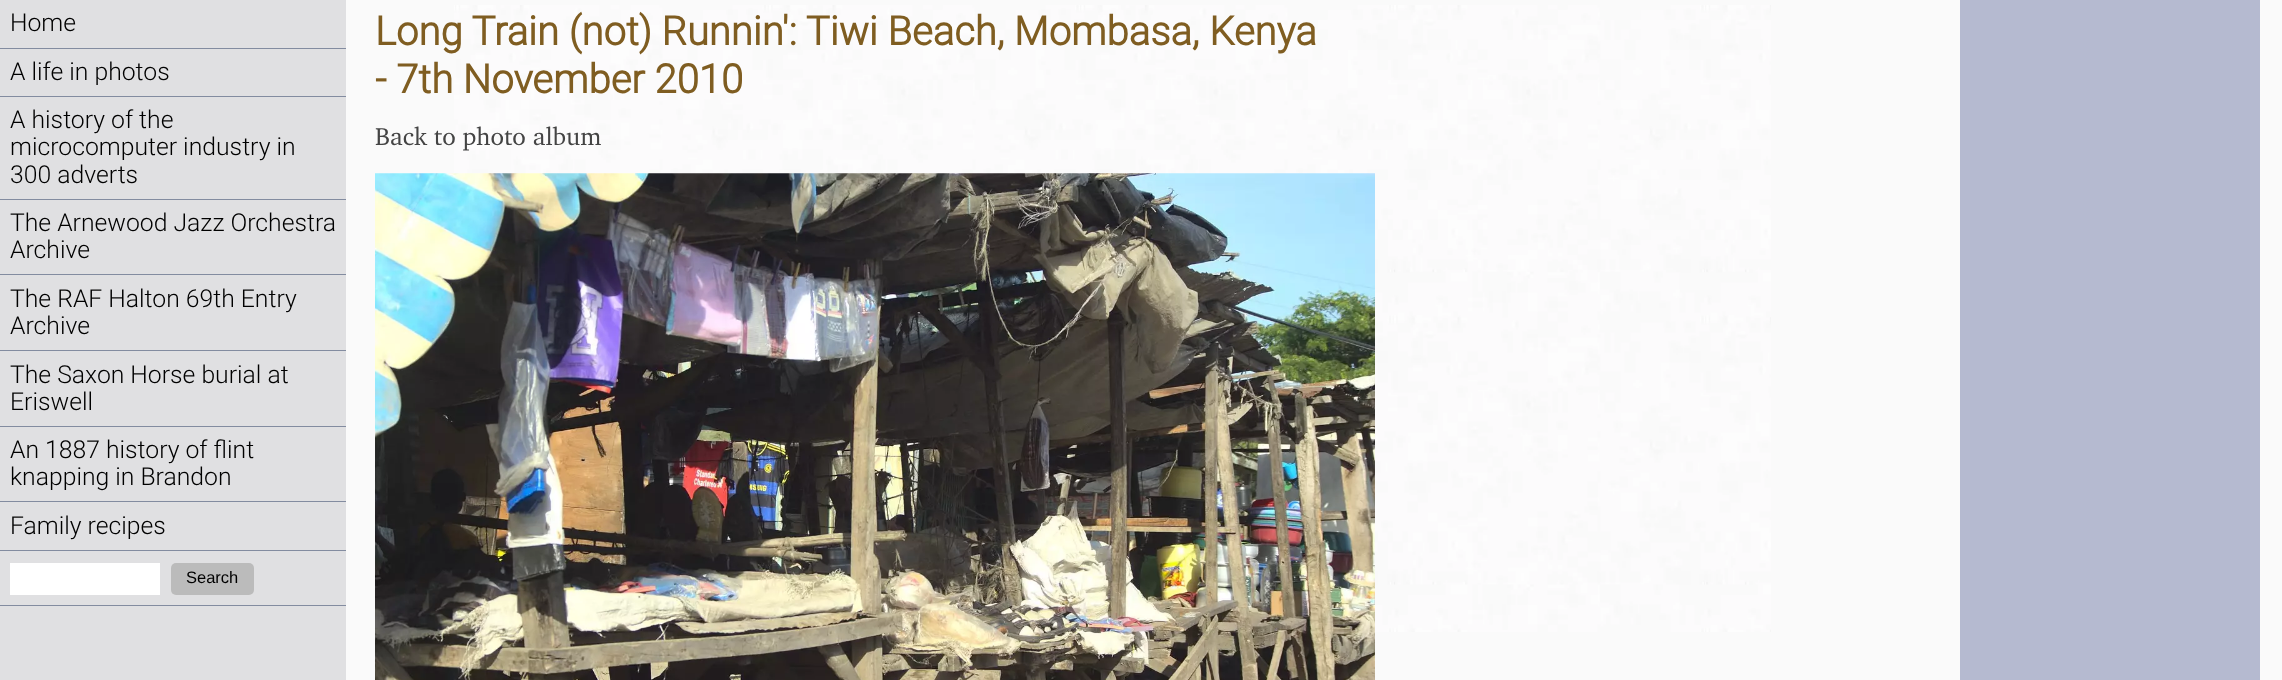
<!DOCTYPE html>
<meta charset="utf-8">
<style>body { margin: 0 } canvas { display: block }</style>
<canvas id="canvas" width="2282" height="680"></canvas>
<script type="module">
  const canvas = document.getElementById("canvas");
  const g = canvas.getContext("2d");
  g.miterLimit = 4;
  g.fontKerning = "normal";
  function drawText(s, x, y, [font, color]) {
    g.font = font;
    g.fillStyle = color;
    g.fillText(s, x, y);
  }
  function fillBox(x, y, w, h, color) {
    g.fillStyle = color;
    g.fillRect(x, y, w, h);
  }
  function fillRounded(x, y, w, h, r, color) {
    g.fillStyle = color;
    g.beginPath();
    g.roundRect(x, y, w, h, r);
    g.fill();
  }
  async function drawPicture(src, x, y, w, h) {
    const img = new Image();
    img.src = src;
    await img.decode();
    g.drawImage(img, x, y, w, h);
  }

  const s1 = ["300 24.75px Roboto", "#000000"];
  const s2 = ["16.5px Liberation Sans", "#000000"];
  const s3 = ["bold 40px Roboto", "#7F5D21"];
  const s4 = ["25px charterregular", "#444444"];

  fillBox(0, 0, 2282, 680, "#FAFAFA");
  fillBox(0, 0, 346, 680, "#E0E0E2");
  fillBox(0, 48, 346, 1, "#838CA0");
  drawText("Home", 10, 31, s1);
  fillBox(0, 96, 346, 1, "#838CA0");
  drawText("A life in photos", 10, 80, s1);
  fillBox(0, 199, 346, 1, "#838CA0");
  drawText("A history of the", 10, 128, s1);
  drawText("microcomputer industry in", 10, 155, s1);
  drawText("300 adverts", 10, 183, s1);
  fillBox(0, 274, 346, 1, "#838CA0");
  drawText("The Arnewood Jazz Orchestra", 10, 231, s1);
  drawText("Archive", 10, 258, s1);
  fillBox(0, 350, 346, 1, "#838CA0");
  drawText("The RAF Halton 69th Entry", 10, 307, s1);
  drawText("Archive", 10, 334, s1);
  fillBox(0, 426, 346, 1, "#838CA0");
  drawText("The Saxon Horse burial at", 10, 383, s1);
  drawText("Eriswell", 10, 410, s1);
  fillBox(0, 501, 346, 1, "#838CA0");
  drawText("An 1887 history of flint", 10, 458, s1);
  drawText("knapping in Brandon", 10, 485, s1);
  fillBox(0, 550, 346, 1, "#838CA0");
  drawText("Family recipes", 10, 534, s1);
  fillBox(0, 605, 346, 1, "#838CA0");
  fillBox(10, 563, 150, 32, "#FFFFFF");
  fillRounded(171, 563, 83, 32, 5, "#BBBBBB");
  drawText("Search", 186, 583, s2);
  await drawPicture("pic1.png", 454, 5, 1317, 627);
  drawText("Long Train (not) Runnin': Tiwi Beach, Mombasa, Kenya", 375, 45, s3);
  drawText("- 7th November 2010", 375, 93, s3);
  drawText("Back to photo album", 375, 145, s4);
  await drawPicture("pic2.png", 375, 173, 1000, 507);
  fillBox(1960, 0, 300, 680, "#B5BAD0");
</script>
